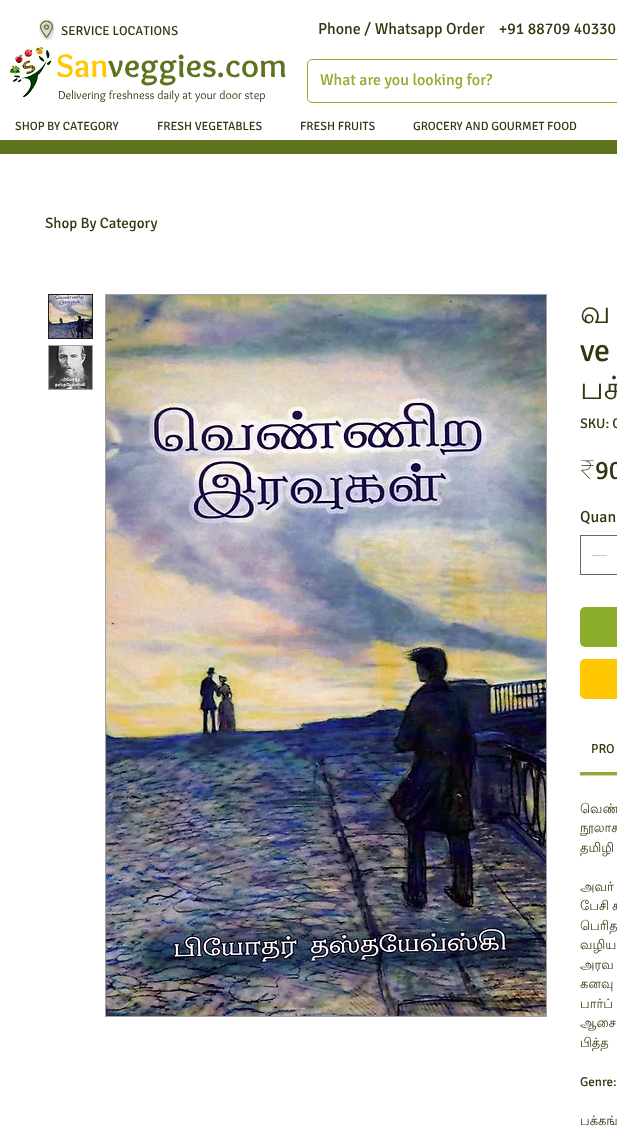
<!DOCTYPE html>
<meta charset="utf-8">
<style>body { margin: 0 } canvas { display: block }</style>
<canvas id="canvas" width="617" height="1138"></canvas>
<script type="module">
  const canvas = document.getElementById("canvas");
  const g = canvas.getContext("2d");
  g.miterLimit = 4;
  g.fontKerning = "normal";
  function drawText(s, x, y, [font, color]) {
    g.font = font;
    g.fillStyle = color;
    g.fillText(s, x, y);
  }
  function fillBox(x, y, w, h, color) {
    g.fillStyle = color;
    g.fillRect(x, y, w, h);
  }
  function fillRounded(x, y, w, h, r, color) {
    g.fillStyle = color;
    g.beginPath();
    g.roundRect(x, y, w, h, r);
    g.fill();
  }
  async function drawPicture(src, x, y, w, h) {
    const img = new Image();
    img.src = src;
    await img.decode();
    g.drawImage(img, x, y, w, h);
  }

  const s1 = ["13px Signika", "#2F390F"];
  const s2 = ["16px Signika", "#2F390F"];
  const s3 = ["bold 34px Overlock", "#FFC802"];
  const s4 = ["bold 34px Overlock", "#5E731E"];
  const s5 = ["16px Signika", "#8DAD2D"];
  const s6 = ["12px Overlock", "#2F390F"];
  const s7 = ["12px Signika", "#2F390F"];
  const s8 = ["15px Signika", "#2F390F"];
  const s9 = ["32px Lohit Tamil", "#2F390F"];
  const s10 = ["32px Signika", "#2F390F"];
  const s11 = ["14px Signika", "#2F390F"];
  const s12 = ["100 26px Noto Sans", "#2F390F"];
  const s13 = ["26px Signika", "#2F390F"];
  const s14 = ["13px Lohit Tamil", "#2F390F"];

  fillBox(0, 0, 617, 1138, "#FFFFFF");
  await drawPicture("pic1.png", 39, 18, 15, 22);
  drawText("SERVICE LOCATIONS", 61, 35, s1);
  drawText("Phone / Whatsapp Order    +91 88709 40330", 318, 34, s2);
  await drawPicture("pic2.png", 9, 47, 43, 51);
  drawText("San", 56, 77, s3);
  drawText("veggies.com", 108, 77, s4);
  g.beginPath();
  g.roundRect(307.5, 59.5, 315, 43, 4.5);
  g.strokeStyle = "#8DAD2D";
  g.stroke();
  drawText("What are you looking for?", 320, 85, s5);
  drawText("Delivering freshness daily at your door step", 58, 99, s6);
  drawText("SHOP BY CATEGORY", 15, 130, s7);
  drawText("FRESH VEGETABLES", 157, 130, s7);
  drawText("FRESH FRUITS", 300, 130, s7);
  drawText("GROCERY AND GOURMET FOOD", 413, 130, s7);
  fillBox(0, 140, 617, 14, "#5E731E");
  drawText("Shop By Category", 45, 228, s8);
  g.strokeStyle = "#221B23";
  g.strokeRect(48.5, 294.5, 44, 44);
  await drawPicture("pic3.png", 49, 295, 43, 43);
  fillBox(48, 345, 45, 45, "#A69EA7");
  await drawPicture("pic4.png", 49, 346, 43, 43);
  g.strokeStyle = "#A69EA7";
  g.strokeRect(105.5, 294.5, 441, 722);
  await drawPicture("pic5.png", 106, 295, 440, 721);
  g.wordSpacing = "-1px";
  drawText("வ", 580, 323, s9);
  g.wordSpacing = "0px";
  drawText("ve", 580, 361, s10);
  drawText("பக்", 580, 399, s9);
  drawText("SKU: C", 580, 428, s11);
  drawText("₹", 580, 479, s12);
  drawText("90", 595, 479, s13);
  drawText("Quan", 580, 522, s2);
  g.strokeStyle = "#666666";
  g.strokeRect(580.5, 535.5, 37, 39);
  fillBox(592, 555, 15, 1, "#C7C7C7");
  fillRounded(580, 607, 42, 40, 5, "#8DAD2D");
  fillRounded(580, 659, 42, 40, 5, "#FFC802");
  fillBox(580, 775, 37, 1, "#D3D1D3");
  fillBox(580, 772, 37, 3, "#8DAD2D");
  drawText("PRO", 591, 753, s1);
  drawText("வெண்", 580, 813, s14);
  drawText("நூலாச", 580, 832, s14);
  drawText("தமிழி", 580, 852, s14);
  drawText("அவர்", 580, 891, s14);
  drawText("பேசி", 580, 910, s14);
  drawText("க", 612, 910, s14);
  drawText("பெரித", 580, 930, s14);
  drawText("வழியா", 580, 949, s14);
  drawText("அரவ", 580, 969, s14);
  drawText("கனவு", 580, 988, s14);
  drawText("பார்ப்", 580, 1008, s14);
  drawText("ஆசை", 580, 1027, s14);
  drawText("பித்த", 580, 1047, s14);
  drawText("Genre:", 580, 1086, s1);
  drawText("பக்கங்", 580, 1125, s14);
</script>
